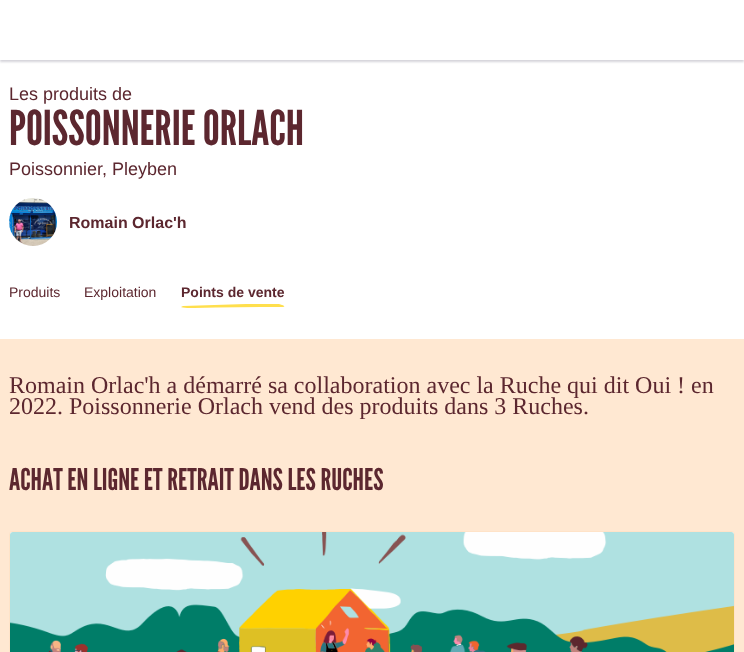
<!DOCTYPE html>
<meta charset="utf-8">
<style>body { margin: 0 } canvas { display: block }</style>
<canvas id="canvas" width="744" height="652"></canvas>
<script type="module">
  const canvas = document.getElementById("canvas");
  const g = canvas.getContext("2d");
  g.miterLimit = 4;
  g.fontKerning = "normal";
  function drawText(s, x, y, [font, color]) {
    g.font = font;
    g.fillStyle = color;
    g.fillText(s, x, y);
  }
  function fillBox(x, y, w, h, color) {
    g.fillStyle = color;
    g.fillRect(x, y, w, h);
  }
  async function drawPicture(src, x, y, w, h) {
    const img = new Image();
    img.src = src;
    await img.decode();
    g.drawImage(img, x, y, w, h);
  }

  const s1 = ["18px Liberation Sans", "#5C272F"];
  const s2 = ["48px League Gothic", "#5C272F"];
  const s3 = ["bold 16px Liberation Sans", "#5C272F"];
  const s4 = ["14px Liberation Sans", "#5C272F"];
  const s5 = ["bold 14px Liberation Sans", "#5C272F"];
  const s6 = ["24px Liberation Serif", "#5C272F"];
  const s7 = ["30px League Gothic", "#5C272F"];

  fillBox(0, 0, 744, 652, "#FFE8D2");
  fillBox(0, 60, 744, 279, "#FFFFFF");
  g.fillStyle = "rgba(45, 40, 70, 0.2)";
  g.filter = "blur(1px)";
  g.beginPath();
  g.rect(0, 2, 744, 60);
  g.fill();
  g.filter = "none";
  fillBox(0, 0, 744, 60, "#FFFFFF");
  drawText("Les produits de", 9, 100, s1);
  drawText("POISSONNERIE ORLACH", 9, 145, s2);
  drawText("Poissonnier", 9, 175, s1);
  drawText(", Pleyben", 102, 175, s1);
  await drawPicture("pic1.png", 9, 198, 48, 48);
  drawText("Romain Orlac'h", 69, 228, s3);
  drawText("Produits", 9, 297, s4);
  drawText("Exploitation", 84, 297, s4);
  drawText("Points de vente", 181, 297, s5);
  g.fillStyle = "#FFDF4D";
  g.beginPath();
  g.moveTo(284, 305);
  g.lineTo(281, 305);
  g.lineTo(282, 305);
  g.lineTo(279, 304);
  g.lineTo(246, 304);
  g.lineTo(183, 306);
  g.lineTo(181, 307);
  g.bezierCurveTo(181, 308, 193, 308, 195, 308);
  g.lineTo(189, 308);
  g.lineTo(194, 308);
  g.bezierCurveTo(223, 307, 253, 307, 282, 307);
  g.bezierCurveTo(285, 307, 285, 306, 282, 305);
  g.lineTo(284, 305);
  g.fill("evenodd");
  drawText("Romain Orlac'h a démarré sa collaboration avec la Ruche qui dit Oui ! en", 9, 393, s6);
  drawText("2022. Poissonnerie Orlach vend des produits dans 3 Ruches.", 9, 414, s6);
  drawText("ACHAT EN LIGNE ET RETRAIT DANS LES RUCHES", 9, 490, s7);
  g.fillStyle = "#FFFFFF";
  g.beginPath();
  g.roundRect(9.5, 531.5, 725, 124, 2.5);
  g.fill();
  g.strokeStyle = "#FFE3C8";
  g.stroke();
  await drawPicture("pic2.png", 10, 532, 724, 120);
</script>
